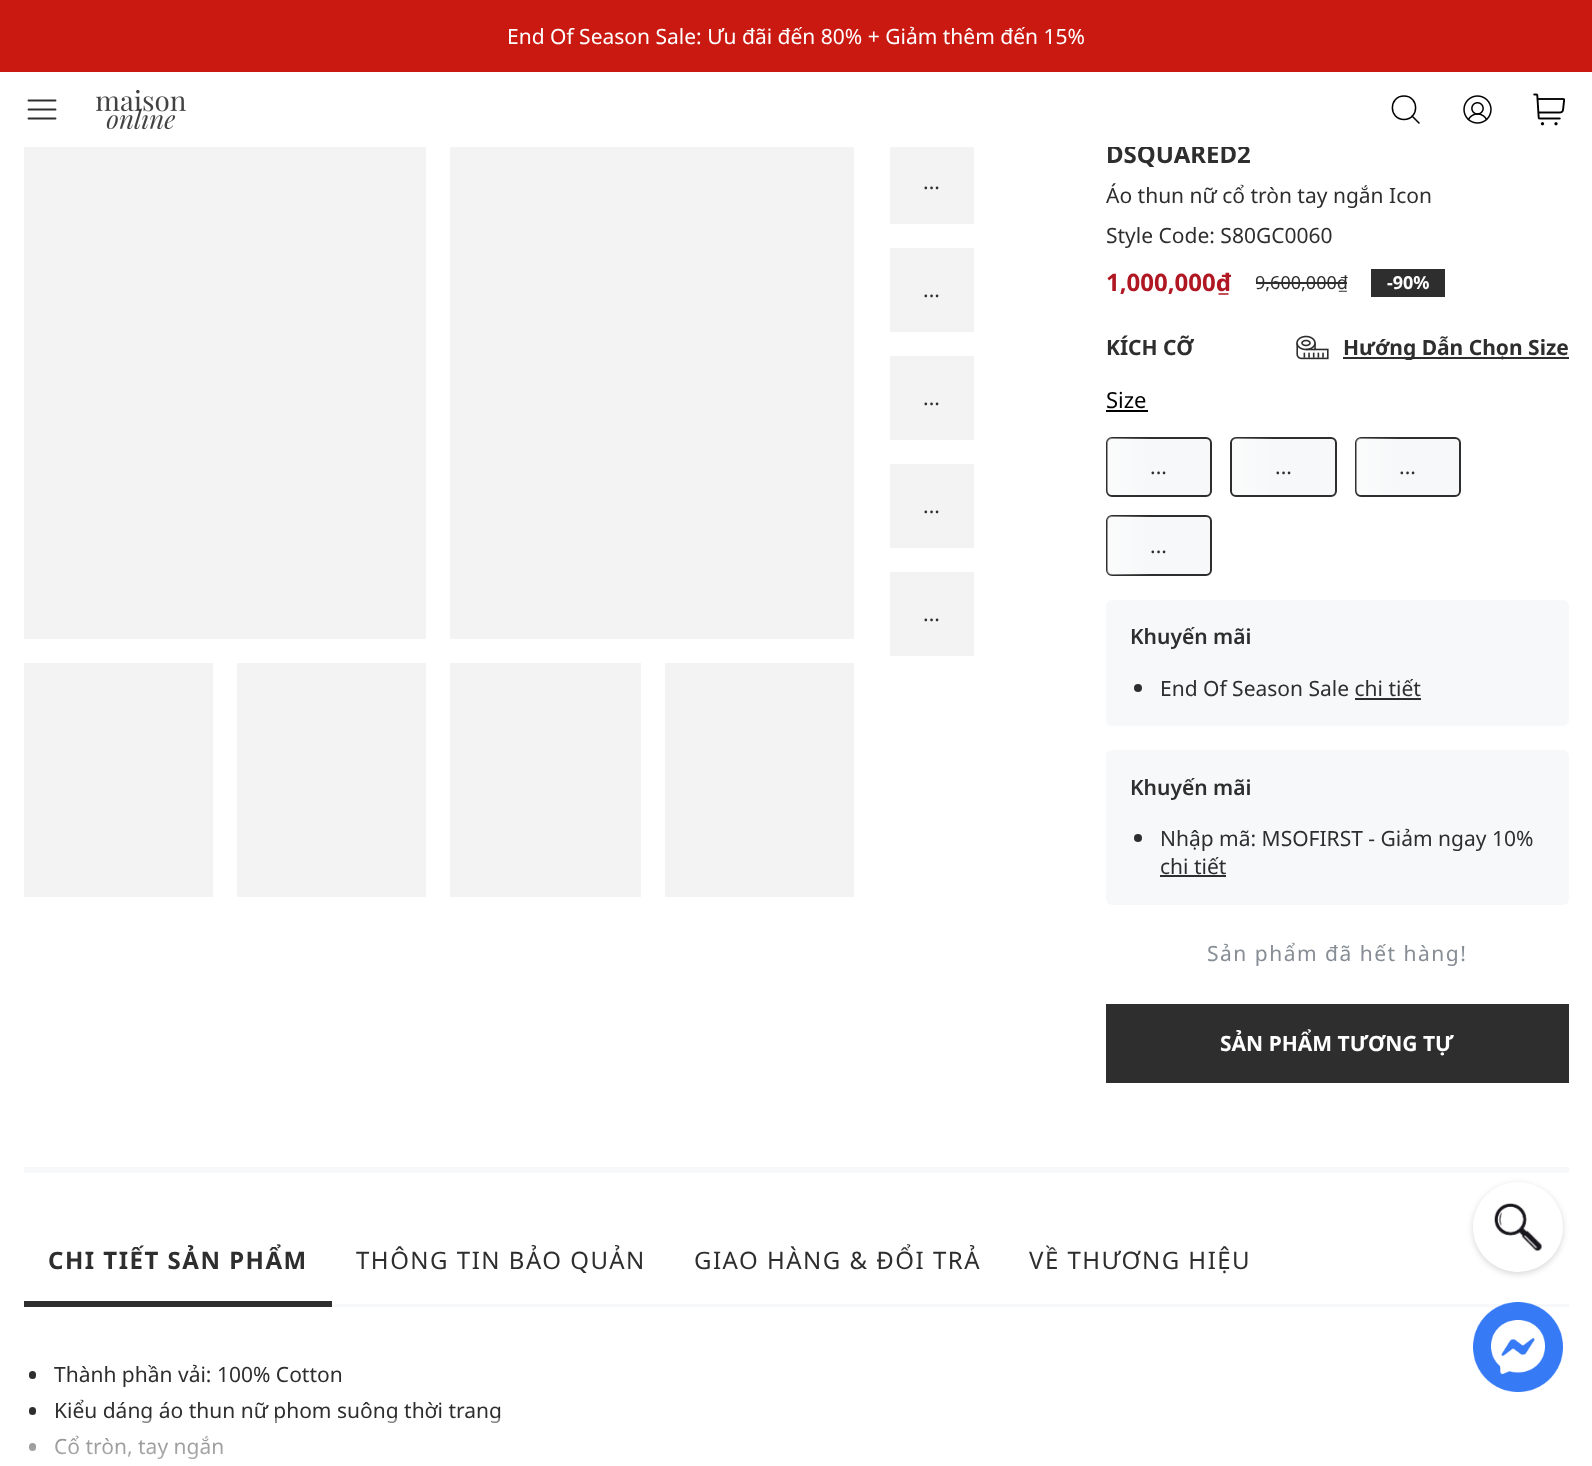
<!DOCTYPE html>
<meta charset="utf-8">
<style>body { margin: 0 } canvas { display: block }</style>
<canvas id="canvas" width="1592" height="1466"></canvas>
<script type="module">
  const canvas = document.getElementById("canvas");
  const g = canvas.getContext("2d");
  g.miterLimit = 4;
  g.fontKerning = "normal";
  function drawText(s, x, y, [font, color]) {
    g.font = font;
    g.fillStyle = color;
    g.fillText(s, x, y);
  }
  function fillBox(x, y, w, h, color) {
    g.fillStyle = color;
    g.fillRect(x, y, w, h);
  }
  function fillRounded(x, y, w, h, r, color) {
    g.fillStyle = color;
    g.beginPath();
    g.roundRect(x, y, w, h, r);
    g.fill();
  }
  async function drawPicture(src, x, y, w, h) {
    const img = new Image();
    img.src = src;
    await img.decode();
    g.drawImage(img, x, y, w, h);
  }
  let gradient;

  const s1 = ["21px Noto Sans", "#FFFFFF"];
  const s2 = ["bold 24px Noto Sans", "#2E2E2E"];
  const s3 = ["21px Noto Sans", "#2E2E2E"];
  const s4 = ["bold 24px Noto Sans", "#B01722"];
  const s5 = ["18px Noto Sans", "#2E2E2E"];
  const s6 = ["bold 18px Noto Sans", "#FFFFFF"];
  const s7 = ["bold 21px Noto Sans", "#2E2E2E"];
  const s8 = ["22px Noto Sans", "#000000"];
  const s9 = ["600 21px Noto Sans", "#2E2E2E"];
  const s10 = ["21px Noto Sans", "#868D95"];
  const s11 = ["bold 21px Noto Sans", "#FFFFFF"];
  const s12 = ["24px Noto Sans", "#2E2E2E"];

  fillBox(0, 0, 1592, 1466, "#FFFFFF");
  fillBox(0, 0, 1592, 72, "#CA1911");
  drawText("End Of Season Sale: Ưu đãi đến 80% + Giảm thêm đến 15%", 507, 44, s1);
  drawText("DSQUARED2", 1106, 163, s2);
  fillBox(1107, 145, 141, 2, "#FFFFFF");
  g.beginPath();
  g.moveTo(28.5, 109.5);
  g.lineTo(55.5, 109.5);
  g.moveTo(28.5, 100.5);
  g.lineTo(55.5, 100.5);
  g.moveTo(28.5, 118.5);
  g.lineTo(55.5, 118.5);
  g.strokeStyle = "#2E2E2E";
  g.lineWidth = 1.9;
  g.lineCap = "round";
  g.lineJoin = "round";
  g.stroke();
  await drawPicture("pic1.png", 96, 89, 90, 41);
  g.beginPath();
  g.moveTo(1404, 119.5);
  g.bezierCurveTo(1419.5, 119.5, 1419.5, 96, 1404, 96);
  g.bezierCurveTo(1388.5, 96, 1388.5, 119.5, 1404, 119.5);
  g.closePath();
  g.moveTo(1412, 116);
  g.lineTo(1419, 123);
  g.strokeStyle = "#000000";
  g.lineWidth = 1.5;
  g.stroke();
  await drawPicture("pic2.png", 1463, 95, 29, 29);
  await drawPicture("pic3.png", 1533, 93, 32, 33);
  fillBox(24, 147, 402, 492, "#F3F3F3");
  fillBox(450, 147, 404, 492, "#F3F3F3");
  fillBox(24, 663, 189, 234, "#F3F3F3");
  fillBox(237, 663, 189, 234, "#F3F3F3");
  fillBox(450, 663, 191, 234, "#F3F3F3");
  fillBox(665, 663, 189, 234, "#F3F3F3");
  fillBox(890, 147, 84, 77, "#F3F3F3");
  drawText("...", 923, 189, s3);
  fillBox(890, 248, 84, 84, "#F3F3F3");
  drawText("...", 923, 297, s3);
  fillBox(890, 356, 84, 84, "#F3F3F3");
  drawText("...", 923, 405, s3);
  fillBox(890, 464, 84, 84, "#F3F3F3");
  drawText("...", 923, 513, s3);
  fillBox(890, 572, 84, 84, "#F3F3F3");
  drawText("...", 923, 621, s3);
  drawText("Áo thun nữ cổ tròn tay ngắn Icon", 1106, 203, s3);
  drawText("Style Code: S80GC0060", 1106, 243, s3);
  drawText("1,000,000₫", 1106, 291, s4);
  drawText("9,600,000₫", 1255, 289, s5);
  fillBox(1256, 282, 91, 2, "#2E2E2E");
  fillBox(1371, 269, 74, 28, "#2E2E2E");
  drawText("-90%", 1387, 289, s6);
  drawText("KÍCH CỠ", 1106, 355, s7);
  await drawPicture("pic4.png", 1296, 335, 33, 25);
  fillBox(1343, 357, 226, 2, "#2E2E2E");
  drawText("Hướng Dẫn Chọn Size", 1343, 355, s7);
  drawText("Size", 1106, 408, s8);
  fillBox(1106, 410, 42, 2, "#000000");
  g.fillStyle = "#F7F8F9";
  g.beginPath();
  g.roundRect(1107, 438, 104, 58, 5);
  g.fill();
  g.strokeStyle = "#2E2E2E";
  g.lineWidth = 2;
  g.lineJoin = "miter";
  g.stroke();
  gradient = g.createLinearGradient(1047, 467, 1151, 467);
  gradient.addColorStop(0, "rgba(255, 255, 255, 0)");
  gradient.addColorStop(0.5, "rgba(255, 255, 255, 0.6)");
  gradient.addColorStop(1, "rgba(255, 255, 255, 0)");
  g.fillStyle = gradient;
  g.beginPath();
  g.roundRect(1107, 438, 44, 57, [5, 0, 0, 5]);
  g.fill();
  drawText("...", 1150, 474, s3);
  g.fillStyle = "#F7F8F9";
  g.beginPath();
  g.roundRect(1231, 438, 105, 58, 5);
  g.fill();
  g.stroke();
  gradient = g.createLinearGradient(1172, 467, 1275, 467);
  gradient.addColorStop(0, "rgba(255, 255, 255, 0)");
  gradient.addColorStop(0.5, "rgba(255, 255, 255, 0.6)");
  gradient.addColorStop(1, "rgba(255, 255, 255, 0)");
  g.fillStyle = gradient;
  g.beginPath();
  g.roundRect(1232, 438, 43, 57, [5, 0, 0, 5]);
  g.fill();
  drawText("...", 1275, 474, s3);
  g.fillStyle = "#F7F8F9";
  g.beginPath();
  g.roundRect(1356, 438, 104, 58, 5);
  g.fill();
  g.stroke();
  gradient = g.createLinearGradient(1296, 467, 1400, 467);
  gradient.addColorStop(0, "rgba(255, 255, 255, 0)");
  gradient.addColorStop(0.5, "rgba(255, 255, 255, 0.6)");
  gradient.addColorStop(1, "rgba(255, 255, 255, 0)");
  g.fillStyle = gradient;
  g.beginPath();
  g.roundRect(1356, 438, 44, 57, [5, 0, 0, 5]);
  g.fill();
  drawText("...", 1399, 474, s3);
  g.fillStyle = "#F7F8F9";
  g.beginPath();
  g.roundRect(1107, 516, 104, 59, 5);
  g.fill();
  g.stroke();
  gradient = g.createLinearGradient(1047, 545, 1151, 545);
  gradient.addColorStop(0, "rgba(255, 255, 255, 0)");
  gradient.addColorStop(0.5, "rgba(255, 255, 255, 0.6)");
  gradient.addColorStop(1, "rgba(255, 255, 255, 0)");
  g.fillStyle = gradient;
  g.beginPath();
  g.roundRect(1107, 516, 44, 59, [5, 0, 0, 5]);
  g.fill();
  drawText("...", 1150, 553, s3);
  fillRounded(1106, 600, 463, 126, 6, "#F7F8F9");
  drawText("Khuyến mãi", 1130, 644, s9);
  g.beginPath();
  g.arc(1138, 688, 4, 0, Math.PI * 2);
  g.fill();
  drawText("End Of Season Sale chi tiết", 1160, 696, s3);
  fillBox(1355, 698, 66, 2, "#2E2E2E");
  fillRounded(1106, 750, 463, 155, 6, "#F7F8F9");
  drawText("Khuyến mãi", 1130, 795, s9);
  g.beginPath();
  g.arc(1138, 838, 4, 0, Math.PI * 2);
  g.fill();
  drawText("Nhập mã: MSOFIRST - Giảm ngay 10%", 1160, 846, s3);
  drawText("chi tiết", 1160, 874, s3);
  fillBox(1160, 875, 66, 2, "#2E2E2E");
  g.letterSpacing = "1.5px";
  drawText("Sản phẩm đã hết hàng!", 1207, 961, s10);
  fillBox(1106, 1004, 463, 79, "#2E2E2E");
  g.letterSpacing = "0px";
  drawText("SẢN PHẨM TƯƠNG TỰ", 1220, 1051, s11);
  fillBox(24, 1167, 1545, 6, "#F7F8F9");
  fillBox(332, 1304, 1237, 3, "#F7F8F9");
  fillBox(24, 1301, 308, 6, "#2E2E2E");
  g.letterSpacing = "1.5px";
  drawText("CHI TIẾT SẢN PHẨM", 48, 1269, s2);
  drawText("THÔNG TIN BẢO QUẢN", 356, 1269, s12);
  drawText("GIAO HÀNG & ĐỔI TRẢ", 694, 1269, s12);
  drawText("VỀ THƯƠNG HIỆU", 1029, 1269, s12);
  fillRounded(29, 1371, 7, 8, 3.5, "#2E2E2E");
  g.letterSpacing = "0px";
  drawText("Thành phần vải: 100% Cotton", 54, 1382, s3);
  fillRounded(29, 1407, 7, 8, 3.5, "#2E2E2E");
  drawText("Kiểu dáng áo thun nữ phom suông thời trang", 54, 1418, s3);
  fillRounded(29, 1443, 7, 8, 3.5, "#2E2E2E");
  drawText("Cổ tròn, tay ngắn", 54, 1454, s3);
  gradient = g.createLinearGradient(797, 1417, 797, 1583);
  gradient.addColorStop(0, "rgba(255, 255, 255, 0.4)");
  gradient.addColorStop(0.5, "rgba(255, 255, 255, 0.8)");
  gradient.addColorStop(0.51, "rgba(251, 251, 251, 0.9)");
  gradient.addColorStop(1, "#FFFFFF");
  g.fillStyle = gradient;
  g.fillRect(29, 1418, 472, 41);
  g.fillStyle = "rgba(0, 0, 0, 0.16)";
  g.filter = "blur(3px)";
  g.beginPath();
  g.roundRect(1473, 1184, 90, 90, 45);
  g.fill();
  g.filter = "none";
  g.fillStyle = "#FFFFFF";
  g.beginPath();
  g.arc(1518, 1227, 45, 0, Math.PI * 2);
  g.fill();
  await drawPicture("pic5.png", 1494, 1203, 49, 49);
  await drawPicture("pic6.png", 1473, 1302, 90, 90);
</script>
